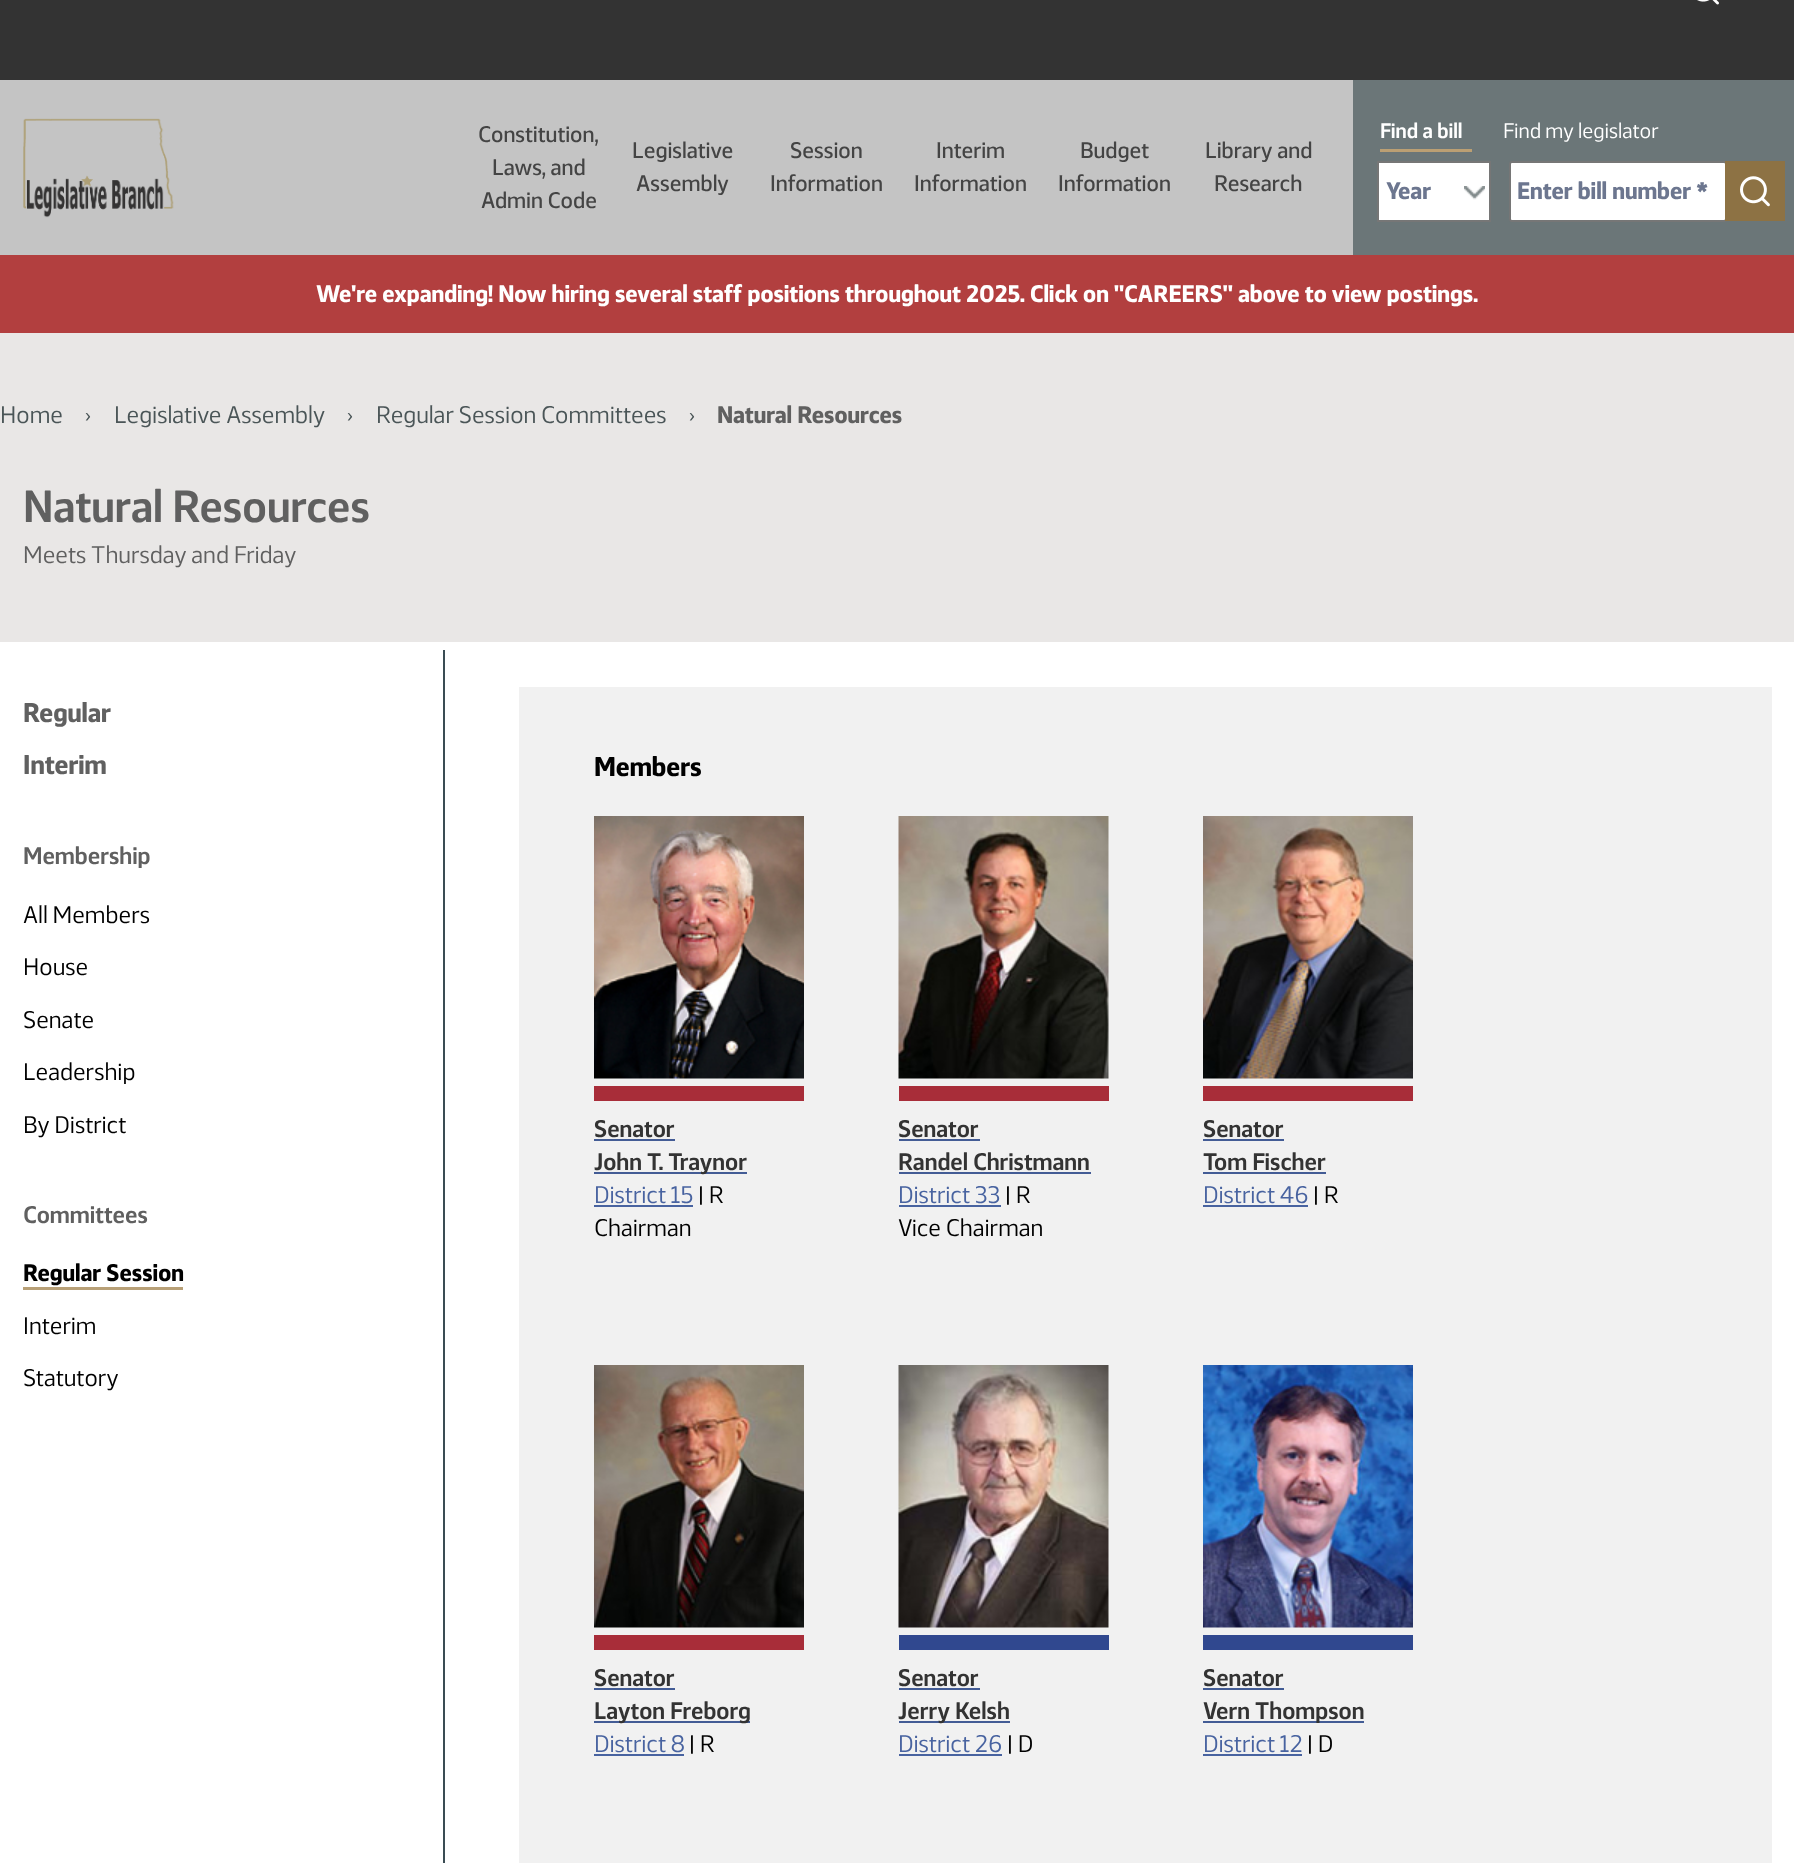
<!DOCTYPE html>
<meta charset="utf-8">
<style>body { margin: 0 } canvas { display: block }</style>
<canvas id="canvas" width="1794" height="1863"></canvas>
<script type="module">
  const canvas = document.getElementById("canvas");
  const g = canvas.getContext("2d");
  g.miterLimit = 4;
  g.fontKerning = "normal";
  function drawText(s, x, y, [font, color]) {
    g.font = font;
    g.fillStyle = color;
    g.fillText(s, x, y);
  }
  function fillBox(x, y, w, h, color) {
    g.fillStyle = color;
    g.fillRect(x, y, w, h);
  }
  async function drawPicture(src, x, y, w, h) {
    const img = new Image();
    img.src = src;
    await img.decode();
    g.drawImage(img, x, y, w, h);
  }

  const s1 = ["500 22.5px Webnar", "#444444"];
  const s2 = ["600 21px Webnar", "#FFFFFF"];
  const s3 = ["21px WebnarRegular", "#FFFFFF"];
  const s4 = ["bold 24px Webnar", "#6C768F"];
  const s5 = ["bold 24px Webnar", "#FFFFFF"];
  const s6 = ["24px WebnarRegular", "#4A5557"];
  const s7 = ["bold 24px Webnar", "#606060"];
  const s8 = ["600 45px Webnar", "#606060"];
  const s9 = ["24px WebnarRegular", "#606060"];
  const s10 = ["bold 27px Webnar", "#606060"];
  const s11 = ["600 24px Webnar", "#606060"];
  const s12 = ["24px WebnarRegular", "#000000"];
  const s13 = ["bold 24px Webnar", "#000000"];
  const s14 = ["bold 27px Webnar", "#000000"];
  const s15 = ["600 24px Webnar", "#333333"];
  const s16 = ["24px WebnarRegular", "#4863A0"];

  fillBox(0, 0, 1794, 1863, "#FFFFFF");
  fillBox(0, 0, 1794, 80, "#333333");
  await drawPicture("pic1.png", 1697, 0, 22, 5);
  fillBox(0, 80, 1353, 175, "#C4C4C4");
  await drawPicture("pic2.png", 23, 118, 151, 100);
  drawText("Constitution,", 478, 142, s1);
  drawText("Laws, and", 492, 175, s1);
  drawText("Admin Code", 481, 208, s1);
  drawText("Legislative", 632, 158, s1);
  drawText("Assembly", 636, 191, s1);
  drawText("Session", 790, 158, s1);
  drawText("Information", 770, 191, s1);
  drawText("Interim", 936, 158, s1);
  drawText("Information", 914, 191, s1);
  drawText("Budget", 1080, 158, s1);
  drawText("Information", 1058, 191, s1);
  drawText("Library and", 1205, 158, s1);
  drawText("Research", 1214, 191, s1);
  fillBox(1353, 80, 441, 175, "#6B7678");
  fillBox(1380, 149, 92, 3, "#BB9F73");
  drawText("Find a bill", 1380, 138, s2);
  drawText("Find my legislator", 1503, 138, s3);
  fillBox(1379, 163, 110, 57, "#FFFFFF");
  await drawPicture("pic3.png", 1464, 186, 21, 14);
  g.strokeStyle = "#767676";
  g.lineWidth = 2;
  g.strokeRect(1378, 162, 112, 59);
  drawText("Year", 1386, 199, s4);
  g.fillStyle = "#FFFFFF";
  g.beginPath();
  g.roundRect(1510, 162, 216, 59, 2);
  g.fill();
  g.stroke();
  drawText("Enter bill number *", 1517, 199, s4);
  await drawPicture("pic4.png", 1725, 161, 60, 60);
  fillBox(0, 255, 1794, 78, "#B23F3F");
  drawText("We're expanding! Now hiring several staff positions throughout 2025. Click on \"CAREERS\" above to view postings.", 316, 302, s5);
  fillBox(0, 333, 1794, 309, "#E9E7E6");
  drawText("Home", 0, 423, s6);
  drawText("›", 85, 423, s6);
  drawText("Legislative Assembly", 114, 423, s6);
  drawText("›", 347, 423, s6);
  drawText("Regular Session Committees", 376, 423, s6);
  drawText("›", 689, 423, s6);
  drawText("Natural Resources", 717, 423, s7);
  drawText("Natural Resources", 23, 522, s8);
  drawText("Meets Thursday and Friday", 23, 563, s9);
  drawText("Regular", 23, 722, s10);
  drawText("Interim", 23, 774, s10);
  drawText("Membership", 23, 864, s11);
  drawText("All Members", 23, 923, s12);
  drawText("House", 23, 975, s12);
  drawText("Senate", 23, 1028, s12);
  drawText("Leadership", 23, 1080, s12);
  drawText("By District", 23, 1133, s12);
  drawText("Committees", 23, 1223, s11);
  drawText("Regular Session", 23, 1281, s13);
  fillBox(23, 1287, 160, 3, "#B8A077");
  drawText("Interim", 23, 1334, s12);
  drawText("Statutory", 23, 1386, s12);
  fillBox(443, 650, 2, 1213, "#3A4C53");
  fillBox(519, 687, 1253, 1176, "#F1F1F1");
  drawText("Members", 594, 776, s14);
  await drawPicture("pic5.png", 594, 816, 210, 263);
  fillBox(594, 1086, 210, 15, "#A82D39");
  drawText("Senator", 594, 1137, s15);
  fillBox(594, 1139, 81, 2, "#435C95");
  fillBox(594, 1172, 153, 2, "#435C95");
  drawText("John T. Traynor", 594, 1170, s15);
  drawText("District 15", 594, 1203, s16);
  fillBox(594, 1205, 99, 2, "#4863A0");
  drawText("| R", 698, 1203, s12);
  drawText("Chairman", 594, 1236, s12);
  await drawPicture("pic6.png", 898, 816, 211, 263);
  fillBox(899, 1086, 210, 15, "#A82D39");
  drawText("Senator", 898, 1137, s15);
  fillBox(899, 1139, 81, 2, "#435C95");
  drawText("Randel Christmann", 898, 1170, s15);
  fillBox(899, 1172, 192, 2, "#435C95");
  drawText("District 33", 898, 1203, s16);
  fillBox(899, 1205, 102, 2, "#4863A0");
  drawText("| R", 1005, 1203, s12);
  drawText("Vice Chairman", 898, 1236, s12);
  await drawPicture("pic7.png", 1203, 816, 210, 263);
  fillBox(1203, 1086, 210, 15, "#A82D39");
  drawText("Senator", 1203, 1137, s15);
  fillBox(1203, 1139, 81, 2, "#435C95");
  drawText("Tom Fischer", 1203, 1170, s15);
  fillBox(1203, 1172, 123, 2, "#435C95");
  drawText("District 46", 1203, 1203, s16);
  fillBox(1203, 1205, 105, 2, "#4863A0");
  drawText("| R", 1313, 1203, s12);
  await drawPicture("pic8.png", 594, 1365, 210, 263);
  fillBox(594, 1635, 210, 15, "#A82D39");
  drawText("Senator", 594, 1686, s15);
  fillBox(594, 1688, 81, 2, "#435C95");
  fillBox(594, 1721, 156, 2, "#435C95");
  drawText("Layton Freborg", 594, 1719, s15);
  drawText("District 8", 594, 1752, s16);
  fillBox(594, 1754, 90, 2, "#4863A0");
  drawText("| R", 689, 1752, s12);
  await drawPicture("pic9.png", 898, 1365, 211, 263);
  fillBox(899, 1635, 210, 15, "#30488F");
  drawText("Senator", 898, 1686, s15);
  fillBox(899, 1688, 81, 2, "#435C95");
  fillBox(899, 1721, 111, 2, "#435C95");
  drawText("Jerry Kelsh", 898, 1719, s15);
  drawText("District 26", 898, 1752, s16);
  fillBox(899, 1754, 103, 2, "#4863A0");
  drawText("| D", 1007, 1752, s12);
  await drawPicture("pic10.png", 1203, 1365, 210, 263);
  fillBox(1203, 1635, 210, 15, "#30488F");
  drawText("Senator", 1203, 1686, s15);
  fillBox(1203, 1688, 81, 2, "#435C95");
  fillBox(1203, 1721, 161, 2, "#435C95");
  drawText("Vern Thompson", 1203, 1719, s15);
  drawText("District 12", 1203, 1752, s16);
  fillBox(1203, 1754, 99, 2, "#4863A0");
  drawText("| D", 1307, 1752, s12);
</script>
